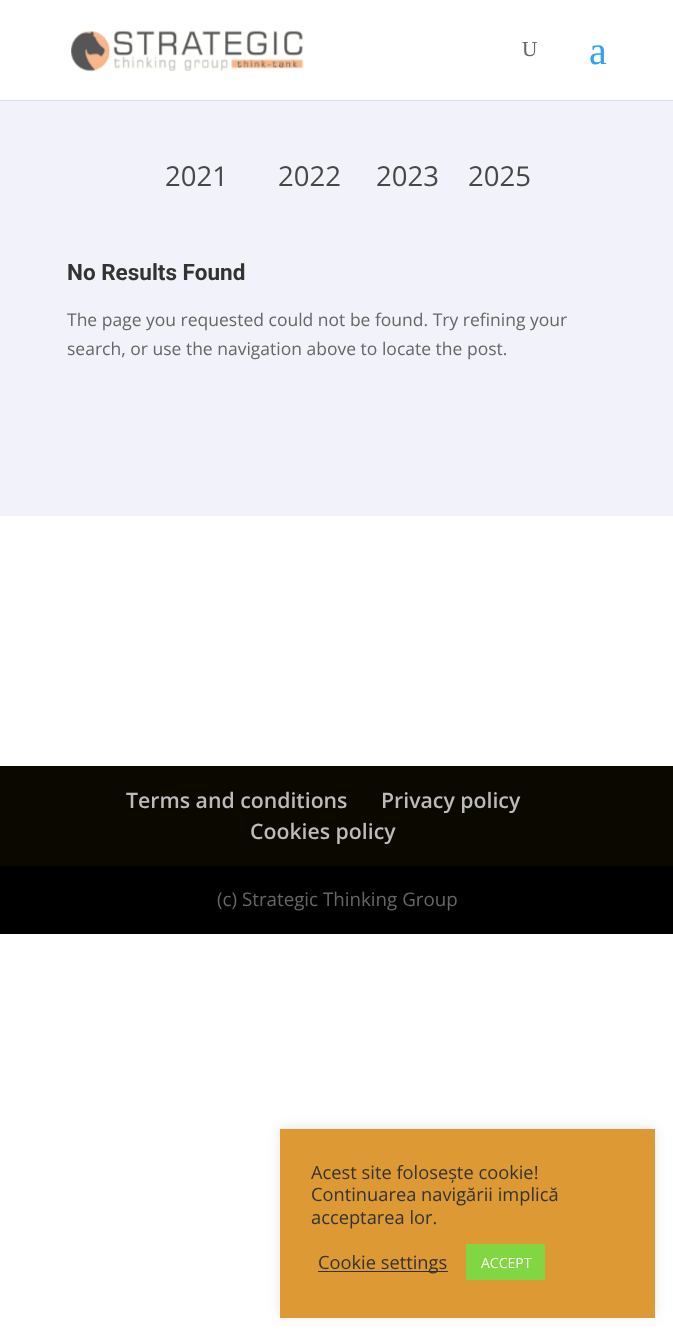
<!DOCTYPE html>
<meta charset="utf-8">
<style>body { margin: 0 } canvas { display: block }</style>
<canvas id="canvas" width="673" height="1336"></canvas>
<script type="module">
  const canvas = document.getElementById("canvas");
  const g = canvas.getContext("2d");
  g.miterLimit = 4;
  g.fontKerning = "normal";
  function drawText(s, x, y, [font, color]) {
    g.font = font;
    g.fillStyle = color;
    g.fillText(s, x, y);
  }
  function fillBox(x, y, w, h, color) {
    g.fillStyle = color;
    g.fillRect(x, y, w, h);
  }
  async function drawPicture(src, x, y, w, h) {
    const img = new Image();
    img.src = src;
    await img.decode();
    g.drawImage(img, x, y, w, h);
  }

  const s1 = ["21.25px Liberation Serif", "#666666"];
  const s2 = ["40px Liberation Serif", "#2EA3F2"];
  const s3 = ["27.5px Open Sans", "#474747"];
  const s4 = ["bold 22.5px Roboto", "#333333"];
  const s5 = ["17.5px Open Sans", "#666666"];
  const s6 = ["600 21.25px Open Sans", "#BBBBBB"];
  const s7 = ["18.75px Open Sans", "#666666"];
  const s8 = ["18.3px Open Sans", "#333333"];
  const s9 = ["14px Open Sans", "#FFFFFF"];

  fillBox(0, 0, 673, 1336, "#FFFFFF");
  g.fillStyle = "#DADAE1";
  g.beginPath();
  g.moveTo(0, 100);
  g.lineTo(0, 101);
  g.lineTo(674, 101);
  g.lineTo(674, 1);
  g.lineTo(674, 100);
  g.closePath();
  g.fill();
  await drawPicture("pic1.png", 71, 30, 233, 42);
  drawText("U", 522, 56, s1);
  drawText("a", 589, 64, s2);
  fillBox(0, 101, 673, 415, "#F2F2FA");
  drawText("2021", 165, 186, s3);
  drawText("2022", 278, 186, s3);
  drawText("2023", 376, 186, s3);
  drawText("2025", 468, 186, s3);
  drawText("No Results Found", 67, 280, s4);
  drawText("The page you requested could not be found. Try refining your", 67, 326, s5);
  drawText("search, or use the navigation above to locate the post.", 67, 355, s5);
  fillBox(0, 866, 673, 68, "#000000");
  fillBox(0, 766, 673, 100, "#0B0800");
  drawText("Terms and conditions", 126, 808, s6);
  drawText("Privacy policy", 381, 808, s6);
  drawText("Cookies policy", 250, 839, s6);
  drawText("(c) Strategic Thinking Group", 217, 906, s7);
  g.fillStyle = "rgba(172, 171, 171, 0.3)";
  g.filter = "blur(6px)";
  g.beginPath();
  g.rect(280, 1128, 375, 188);
  g.fill();
  g.filter = "none";
  fillBox(280, 1129, 375, 189, "#DD9933");
  drawText("Acest site folosește cookie!", 311, 1179, s8);
  drawText("Continuarea navigării implică", 311, 1201, s8);
  drawText("acceptarea lor.", 311, 1224, s8);
  fillBox(318, 1271, 130, 1, "#333333");
  drawText("Cookie settings", 318, 1269, s8);
  fillBox(466, 1244, 79, 36, "#81D742");
  drawText("ACCEPT", 481, 1268, s9);
</script>
